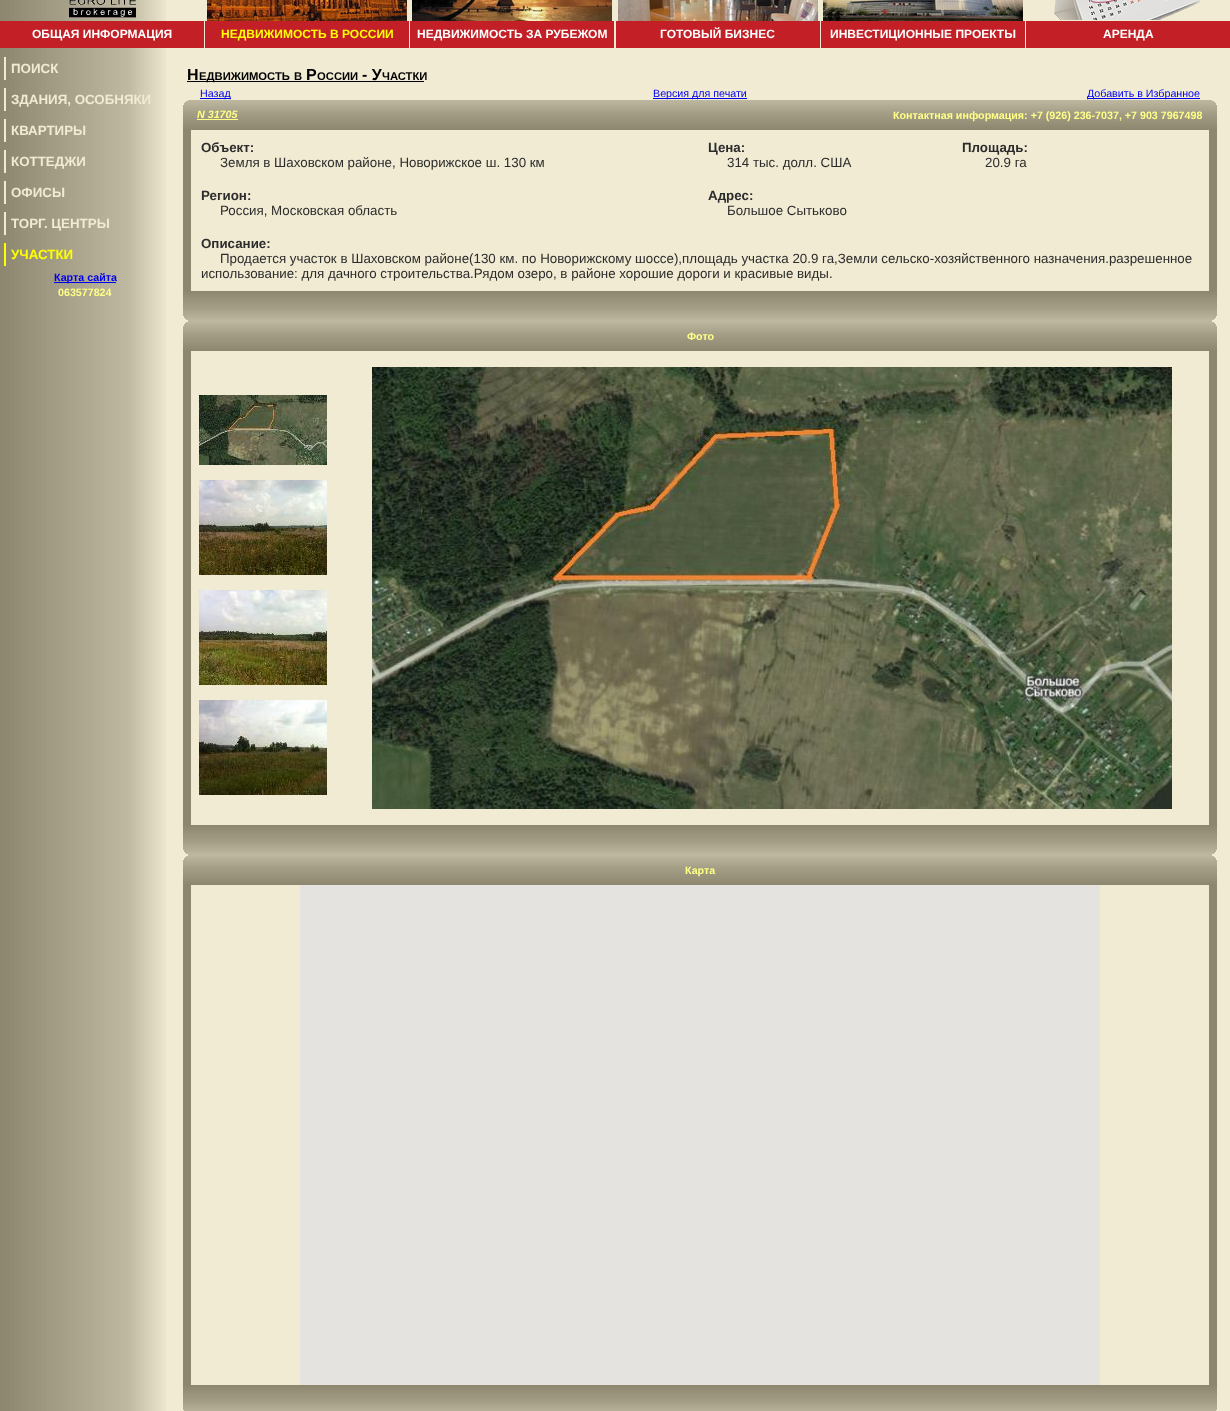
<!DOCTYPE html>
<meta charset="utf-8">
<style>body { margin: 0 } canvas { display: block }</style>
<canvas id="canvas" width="1230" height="1411"></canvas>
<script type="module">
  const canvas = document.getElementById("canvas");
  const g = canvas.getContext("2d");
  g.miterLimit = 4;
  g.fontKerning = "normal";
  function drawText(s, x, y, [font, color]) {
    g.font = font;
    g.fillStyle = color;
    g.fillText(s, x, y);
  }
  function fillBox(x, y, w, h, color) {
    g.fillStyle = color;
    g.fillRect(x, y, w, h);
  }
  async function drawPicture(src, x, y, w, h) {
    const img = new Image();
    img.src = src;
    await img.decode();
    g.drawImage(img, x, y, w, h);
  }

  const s1 = ["bold 12px Liberation Sans", "#FFFFFF"];
  const s2 = ["bold 12px Liberation Sans", "#FFFF00"];
  const s3 = ["bold 13.33px Liberation Sans", "#F1EBD3"];
  const s4 = ["bold 13.33px Liberation Sans", "#FFFF00"];
  const s5 = ["bold 10.7px Liberation Sans", "#0000EE"];
  const s6 = ["bold 10.7px Liberation Sans", "#FFFF88"];
  const s7 = ["bold 16px Liberation Sans", "#000000"];
  const s8 = ["bold 11.25px Liberation Sans", "#000000"];
  const s9 = ["10.7px Liberation Sans", "#0000EE"];
  const s10 = ["italic bold 10.7px Liberation Sans", "#FFFF88"];
  const s11 = ["bold 13.33px Liberation Sans", "#2C2C2C"];
  const s12 = ["13.33px Liberation Sans", "#2C2C2C"];

  fillBox(0, 0, 1230, 1411, "#F1EBD3");
  await drawPicture("pic1.png", 0, 0, 166, 1411);
  await drawPicture("pic2.png", 69, 0, 67, 18);
  await drawPicture("pic3.png", 207, 0, 200, 21);
  await drawPicture("pic4.png", 412, 0, 200, 21);
  await drawPicture("pic5.png", 618, 0, 200, 21);
  await drawPicture("pic6.png", 823, 0, 200, 21);
  await drawPicture("pic7.png", 1054, 0, 147, 20);
  fillBox(0, 21, 204, 27, "#C22026");
  drawText("ОБЩАЯ ИНФОРМАЦИЯ", 32, 38, s1);
  fillBox(205, 21, 204, 27, "#C22026");
  drawText("НЕДВИЖИМОСТЬ В РОССИИ", 221, 38, s2);
  fillBox(410, 21, 204, 27, "#C22026");
  drawText("НЕДВИЖИМОСТЬ ЗА РУБЕЖОМ", 417, 38, s1);
  fillBox(616, 21, 204, 27, "#C22026");
  drawText("ГОТОВЫЙ БИЗНЕС", 660, 38, s1);
  fillBox(821, 21, 204, 27, "#C22026");
  drawText("ИНВЕСТИЦИОННЫЕ ПРОЕКТЫ", 830, 38, s1);
  fillBox(1026, 21, 204, 27, "#C22026");
  drawText("АРЕНДА", 1103, 38, s1);
  fillBox(4, 57, 2, 23, "#F1EBD3");
  drawText("ПОИСК", 11, 73, s3);
  fillBox(4, 88, 2, 23, "#F1EBD3");
  drawText("ЗДАНИЯ, ОСОБНЯКИ", 11, 104, s3);
  fillBox(4, 119, 2, 23, "#F1EBD3");
  drawText("КВАРТИРЫ", 11, 135, s3);
  fillBox(4, 150, 2, 23, "#F1EBD3");
  drawText("КОТТЕДЖИ", 11, 166, s3);
  fillBox(4, 181, 2, 23, "#F1EBD3");
  drawText("ОФИСЫ", 11, 197, s3);
  fillBox(4, 212, 2, 23, "#F1EBD3");
  drawText("ТОРГ. ЦЕНТРЫ", 11, 228, s3);
  fillBox(4, 243, 2, 23, "#FFFF00");
  drawText("УЧАСТКИ", 11, 259, s4);
  fillBox(54, 282, 62, 1, "#0000EE");
  drawText("Карта сайта", 54, 281, s5);
  drawText("063577824", 58, 296, s6);
  drawText("Н", 187, 80, s7);
  fillBox(187, 81, 237, 1, "#000000");
  drawText("ЕДВИЖИМОСТЬ", 199, 80, s8);
  drawText("В", 294, 80, s8);
  drawText("Р", 306, 80, s7);
  drawText("ОССИИ", 317, 80, s8);
  drawText("- У", 362, 80, s7);
  drawText("ЧАСТКИ", 382, 80, s8);
  fillBox(200, 98, 31, 1, "#0000EE");
  drawText("Назад", 200, 97, s9);
  fillBox(653, 98, 94, 1, "#0000EE");
  drawText("Версия для печати", 653, 97, s9);
  fillBox(1087, 98, 113, 1, "#0000EE");
  drawText("Добавить в Избранное", 1087, 97, s9);
  await drawPicture("pic8.png", 183, 100, 8, 30);
  await drawPicture("pic9.png", 191, 100, 1018, 30);
  drawText("N 31705", 197, 118, s10);
  fillBox(197, 119, 41, 1, "#FFFF88");
  drawText("Контактная информация: +7 (926) 236-7037, +7 903 7967498", 893, 119, s6);
  await drawPicture("pic10.png", 1209, 100, 8, 30);
  fillBox(183, 130, 8, 161, "#8D876F");
  drawText("Объект:", 201, 152, s11);
  drawText("Земля в Шаховском районе, Новорижское ш. 130 км", 220, 167, s12);
  drawText("Цена:", 708, 152, s11);
  drawText("314 тыс. долл. США", 727, 167, s12);
  drawText("Площадь:", 962, 152, s11);
  drawText("20.9 га", 985, 167, s12);
  drawText("Регион:", 201, 200, s11);
  drawText("Россия, Московская область", 220, 215, s12);
  drawText("Адрес:", 708, 200, s11);
  drawText("Большое Сытьково", 727, 215, s12);
  drawText("Описание:", 201, 248, s11);
  drawText("Продается участок в Шаховском районе(130 км. по Новорижскому шоссе),площадь участка 20.9 га,Земли сельско-хозяйственного назначения.разрешенное", 220, 263, s12);
  drawText("использование: для дачного строительства.Рядом озеро, в районе хорошие дороги и красивые виды.", 201, 278, s12);
  fillBox(1209, 130, 8, 161, "#8D876F");
  await drawPicture("pic11.png", 183, 291, 8, 30);
  await drawPicture("pic12.png", 191, 291, 1018, 30);
  await drawPicture("pic13.png", 1209, 291, 8, 30);
  await drawPicture("pic8.png", 183, 321, 8, 30);
  await drawPicture("pic9.png", 191, 321, 1018, 30);
  drawText("Фото", 687, 340, s6);
  await drawPicture("pic10.png", 1209, 321, 8, 30);
  fillBox(183, 351, 8, 474, "#8D876F");
  await drawPicture("pic14.png", 199, 395, 128, 70);
  await drawPicture("pic15.png", 199, 480, 128, 95);
  await drawPicture("pic16.png", 199, 590, 128, 95);
  await drawPicture("pic17.png", 199, 700, 128, 95);
  await drawPicture("pic18.png", 372, 367, 800, 442);
  fillBox(1209, 351, 8, 474, "#8D876F");
  await drawPicture("pic11.png", 183, 825, 8, 30);
  await drawPicture("pic12.png", 191, 825, 1018, 30);
  await drawPicture("pic13.png", 1209, 825, 8, 30);
  await drawPicture("pic8.png", 183, 855, 8, 30);
  await drawPicture("pic9.png", 191, 855, 1018, 30);
  drawText("Карта", 685, 874, s6);
  await drawPicture("pic10.png", 1209, 855, 8, 30);
  fillBox(183, 885, 8, 500, "#8D876F");
  fillBox(300, 885, 800, 500, "#E5E3DF");
  fillBox(1209, 885, 8, 500, "#8D876F");
  await drawPicture("pic19.png", 183, 1385, 8, 26);
  await drawPicture("pic20.png", 191, 1385, 1018, 26);
  await drawPicture("pic21.png", 1209, 1385, 8, 26);
</script>
